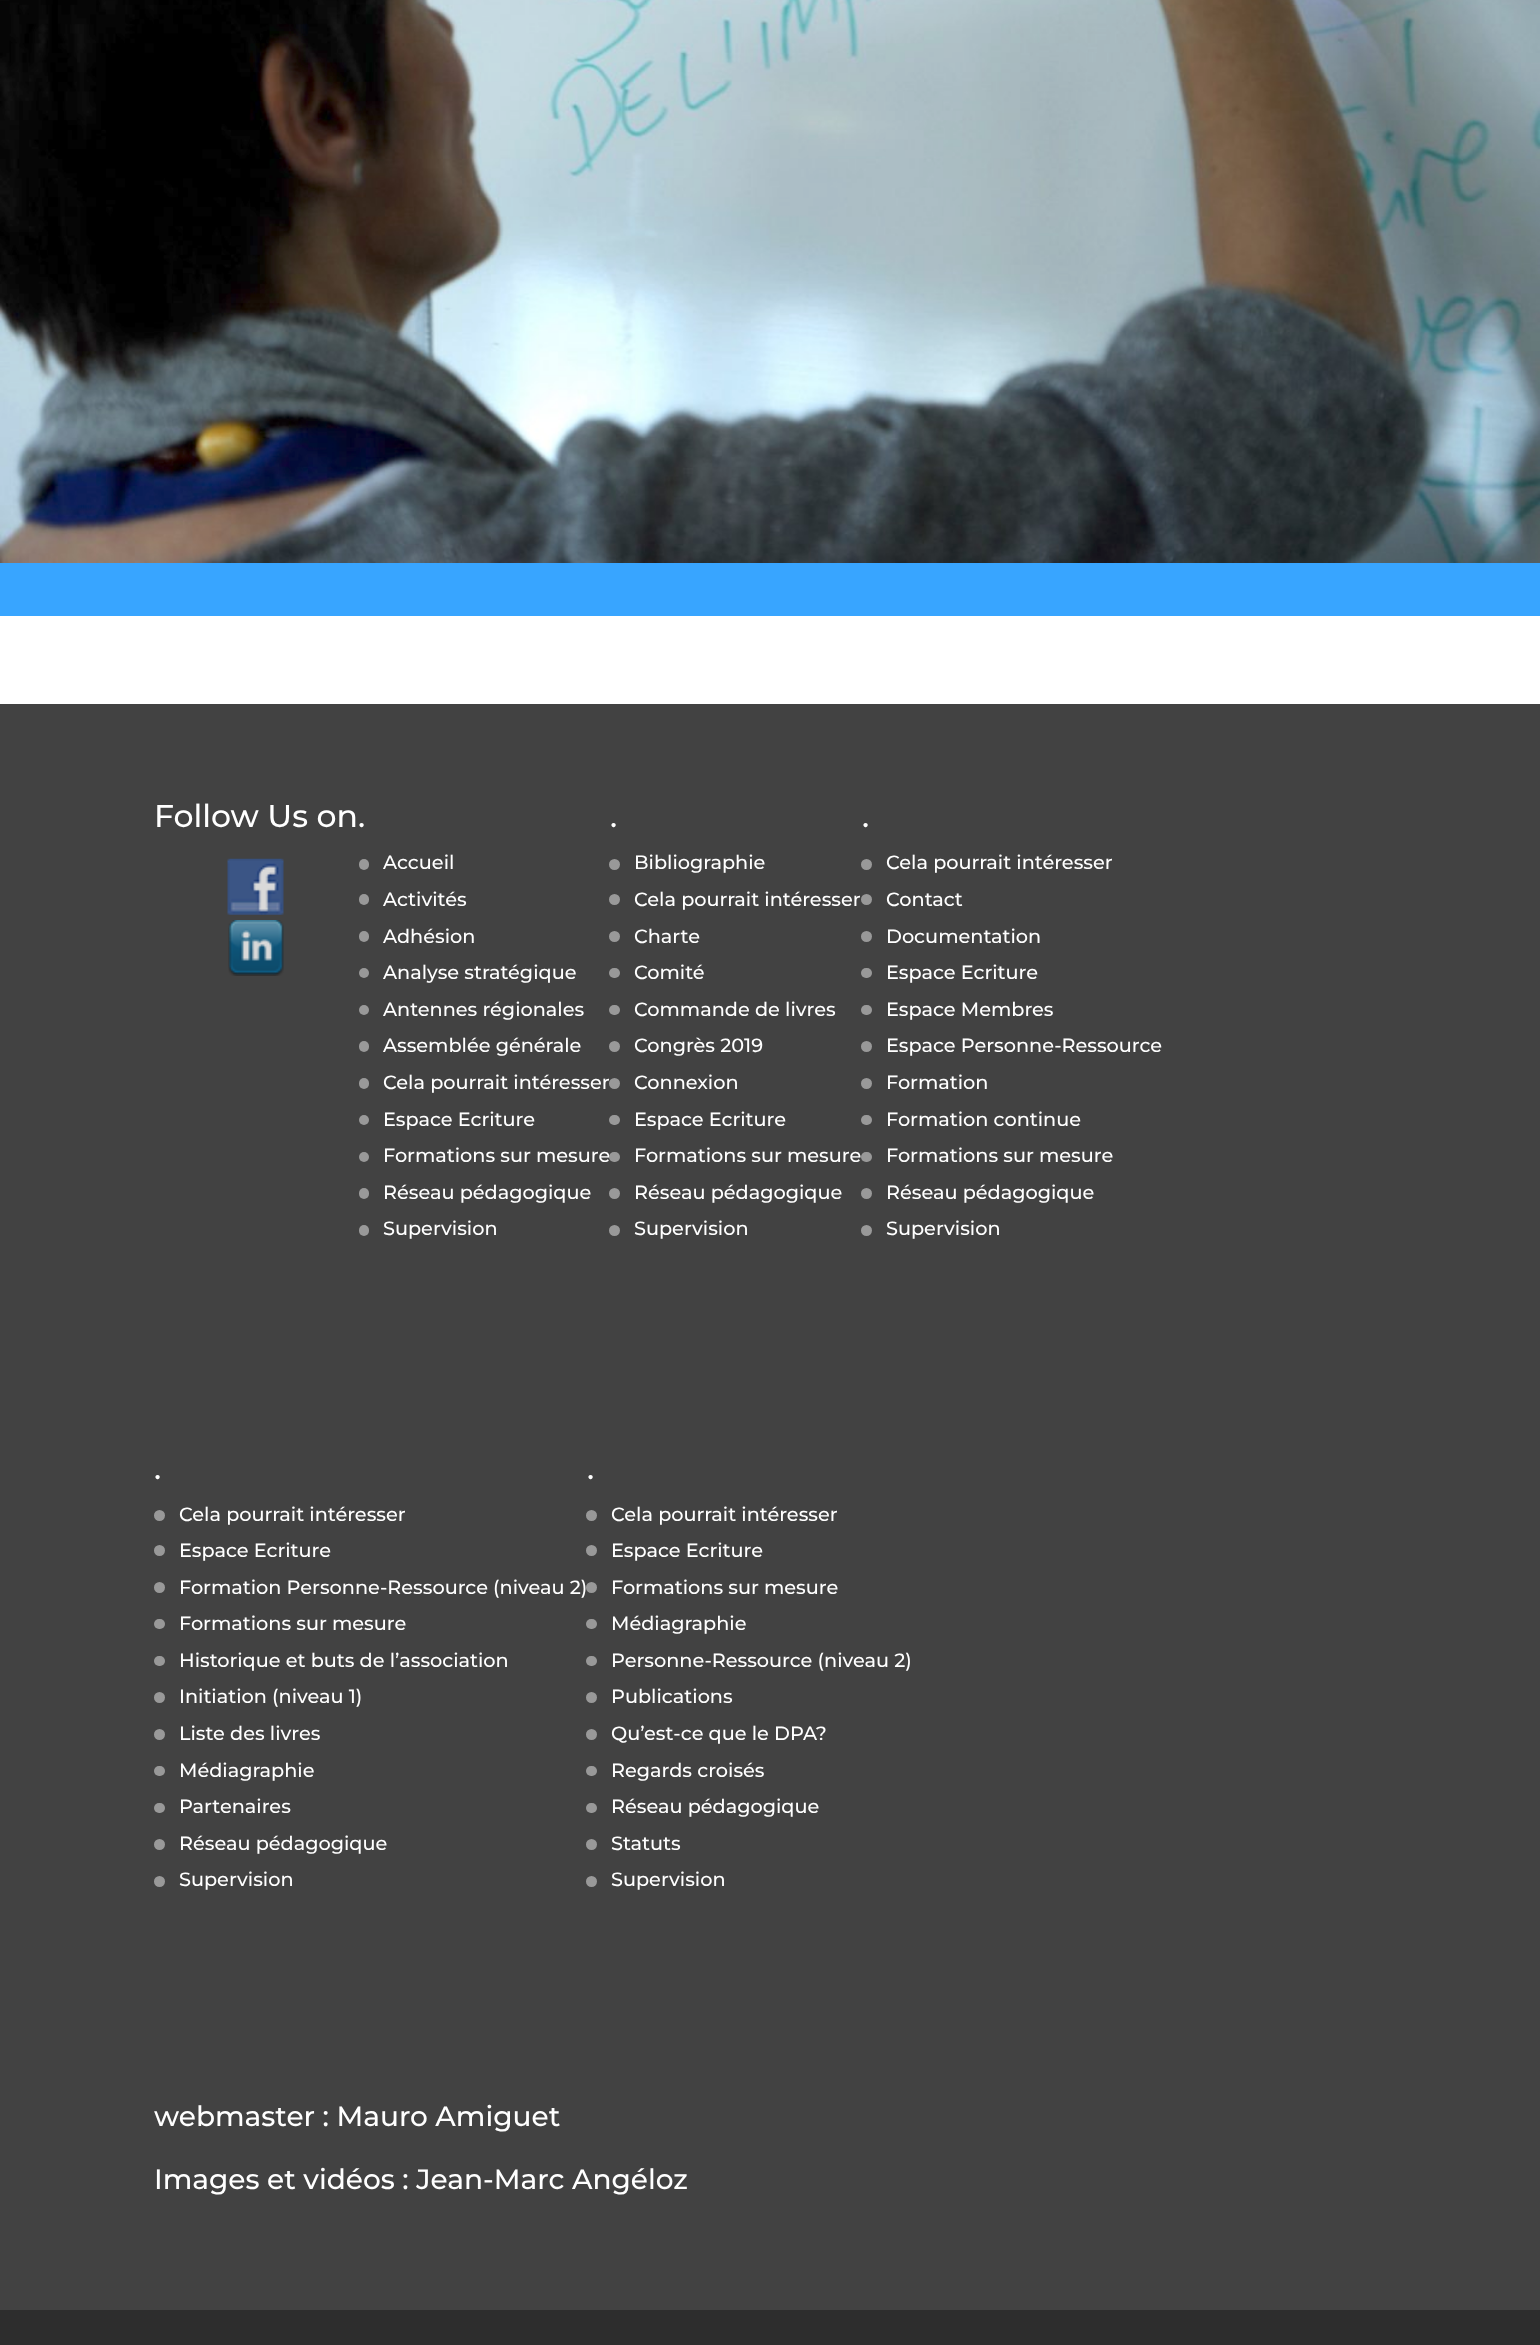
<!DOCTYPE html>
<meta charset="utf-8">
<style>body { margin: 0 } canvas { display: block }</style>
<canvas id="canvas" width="1540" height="2345"></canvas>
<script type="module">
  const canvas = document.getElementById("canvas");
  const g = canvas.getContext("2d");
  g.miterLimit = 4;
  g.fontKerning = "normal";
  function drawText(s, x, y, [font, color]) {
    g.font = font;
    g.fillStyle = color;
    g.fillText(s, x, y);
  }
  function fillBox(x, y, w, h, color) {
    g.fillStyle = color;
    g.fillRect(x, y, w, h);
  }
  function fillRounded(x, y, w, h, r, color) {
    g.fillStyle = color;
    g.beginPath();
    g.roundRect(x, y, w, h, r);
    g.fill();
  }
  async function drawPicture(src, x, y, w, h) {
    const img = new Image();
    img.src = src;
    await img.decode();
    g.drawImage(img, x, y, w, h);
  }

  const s1 = ["500 31.5px Montserrat", "#FFFFFF"];
  const s2 = ["500 19.25px Montserrat", "#FFFFFF"];
  const s3 = ["500 28px Montserrat", "#FFFFFF"];

  fillBox(0, 0, 1540, 2345, "#FFFFFF");
  fillBox(0, 563, 1540, 53, "#38A5FF");
  await drawPicture("pic1.png", 0, 0, 1540, 563);
  fillBox(0, 704, 1540, 1606, "#424242");
  drawText("Follow Us on.", 154, 827, s1);
  await drawPicture("pic2.png", 227, 858, 57, 57);
  await drawPicture("pic3.png", 228, 920, 56, 56);
  fillRounded(359, 859, 10, 11, 5, "#999999");
  drawText("Accueil", 383, 869, s2);
  fillRounded(359, 894, 10, 11, 5, "#999999");
  drawText("Activités", 383, 906, s2);
  fillRounded(359, 931, 10, 11, 5, "#999999");
  drawText("Adhésion", 383, 943, s2);
  g.fillStyle = "#999999";
  g.beginPath();
  g.arc(364, 973, 5, 0, Math.PI * 2);
  g.fill();
  drawText("Analyse stratégique", 383, 979, s2);
  g.fillStyle = "#999999";
  g.beginPath();
  g.arc(364, 1010, 5, 0, Math.PI * 2);
  g.fill();
  drawText("Antennes régionales", 383, 1016, s2);
  fillRounded(359, 1041, 10, 11, 5, "#999999");
  drawText("Assemblée générale", 383, 1052, s2);
  fillRounded(359, 1078, 10, 11, 5, "#999999");
  drawText("Cela pourrait intéresser", 383, 1089, s2);
  g.fillStyle = "#999999";
  g.beginPath();
  g.arc(364, 1120, 5, 0, Math.PI * 2);
  g.fill();
  drawText("Espace Ecriture", 383, 1126, s2);
  g.fillStyle = "#999999";
  g.beginPath();
  g.arc(364, 1157, 5, 0, Math.PI * 2);
  g.fill();
  drawText("Formations sur mesure", 383, 1162, s2);
  fillRounded(359, 1188, 10, 11, 5, "#999999");
  drawText("Réseau pédagogique", 383, 1199, s2);
  fillRounded(359, 1225, 10, 11, 5, "#999999");
  drawText("Supervision", 383, 1235, s2);
  drawText(".", 610, 827, s1);
  g.fillStyle = "#999999";
  g.beginPath();
  g.arc(614.5, 864.5, 5.5, 0, Math.PI * 2);
  g.fill();
  drawText("Bibliographie", 634, 869, s2);
  g.fillStyle = "#999999";
  g.beginPath();
  g.arc(614.5, 899.5, 5.5, 0, Math.PI * 2);
  g.fill();
  drawText("Cela pourrait intéresser", 634, 906, s2);
  g.fillStyle = "#999999";
  g.beginPath();
  g.arc(614.5, 936.5, 5.5, 0, Math.PI * 2);
  g.fill();
  drawText("Charte", 634, 943, s2);
  fillRounded(609, 968, 11, 10, 5, "#999999");
  drawText("Comité", 634, 979, s2);
  fillRounded(609, 1005, 11, 10, 5, "#999999");
  drawText("Commande de livres", 634, 1016, s2);
  g.fillStyle = "#999999";
  g.beginPath();
  g.arc(614.5, 1046.5, 5.5, 0, Math.PI * 2);
  g.fill();
  drawText("Congrès 2019", 634, 1052, s2);
  g.fillStyle = "#999999";
  g.beginPath();
  g.arc(614.5, 1083.5, 5.5, 0, Math.PI * 2);
  g.fill();
  drawText("Connexion", 634, 1089, s2);
  fillRounded(609, 1115, 11, 10, 5, "#999999");
  drawText("Espace Ecriture", 634, 1126, s2);
  fillRounded(609, 1152, 11, 10, 5, "#999999");
  drawText("Formations sur mesure", 634, 1162, s2);
  g.fillStyle = "#999999";
  g.beginPath();
  g.arc(614.5, 1193.5, 5.5, 0, Math.PI * 2);
  g.fill();
  drawText("Réseau pédagogique", 634, 1199, s2);
  g.fillStyle = "#999999";
  g.beginPath();
  g.arc(614.5, 1230.5, 5.5, 0, Math.PI * 2);
  g.fill();
  drawText("Supervision", 634, 1235, s2);
  drawText(".", 862, 827, s1);
  g.fillStyle = "#999999";
  g.beginPath();
  g.arc(866.5, 864.5, 5.5, 0, Math.PI * 2);
  g.fill();
  drawText("Cela pourrait intéresser", 886, 869, s2);
  g.fillStyle = "#999999";
  g.beginPath();
  g.arc(866.5, 899.5, 5.5, 0, Math.PI * 2);
  g.fill();
  drawText("Contact", 886, 906, s2);
  g.fillStyle = "#999999";
  g.beginPath();
  g.arc(866.5, 936.5, 5.5, 0, Math.PI * 2);
  g.fill();
  drawText("Documentation", 886, 943, s2);
  fillRounded(861, 968, 11, 10, 5, "#999999");
  drawText("Espace Ecriture", 886, 979, s2);
  fillRounded(861, 1005, 11, 10, 5, "#999999");
  drawText("Espace Membres", 886, 1016, s2);
  g.fillStyle = "#999999";
  g.beginPath();
  g.arc(866.5, 1046.5, 5.5, 0, Math.PI * 2);
  g.fill();
  drawText("Espace Personne-Ressource", 886, 1052, s2);
  g.fillStyle = "#999999";
  g.beginPath();
  g.arc(866.5, 1083.5, 5.5, 0, Math.PI * 2);
  g.fill();
  drawText("Formation", 886, 1089, s2);
  fillRounded(861, 1115, 11, 10, 5, "#999999");
  drawText("Formation continue", 886, 1126, s2);
  fillRounded(861, 1152, 11, 10, 5, "#999999");
  drawText("Formations sur mesure", 886, 1162, s2);
  g.fillStyle = "#999999";
  g.beginPath();
  g.arc(866.5, 1193.5, 5.5, 0, Math.PI * 2);
  g.fill();
  drawText("Réseau pédagogique", 886, 1199, s2);
  g.fillStyle = "#999999";
  g.beginPath();
  g.arc(866.5, 1230.5, 5.5, 0, Math.PI * 2);
  g.fill();
  drawText("Supervision", 886, 1235, s2);
  drawText(".", 154, 1479, s1);
  g.fillStyle = "#999999";
  g.beginPath();
  g.arc(159.5, 1515.5, 5.5, 0, Math.PI * 2);
  g.fill();
  drawText("Cela pourrait intéresser", 179, 1521, s2);
  g.fillStyle = "#999999";
  g.beginPath();
  g.arc(159.5, 1550.5, 5.5, 0, Math.PI * 2);
  g.fill();
  drawText("Espace Ecriture", 179, 1557, s2);
  g.fillStyle = "#999999";
  g.beginPath();
  g.arc(159.5, 1587.5, 5.5, 0, Math.PI * 2);
  g.fill();
  drawText("Formation Personne-Ressource (niveau 2)", 179, 1594, s2);
  fillRounded(154, 1619, 11, 10, 5, "#999999");
  drawText("Formations sur mesure", 179, 1630, s2);
  fillRounded(154, 1656, 11, 10, 5, "#999999");
  drawText("Historique et buts de l’association", 179, 1667, s2);
  g.fillStyle = "#999999";
  g.beginPath();
  g.arc(159.5, 1697.5, 5.5, 0, Math.PI * 2);
  g.fill();
  drawText("Initiation (niveau 1)", 179, 1703, s2);
  g.fillStyle = "#999999";
  g.beginPath();
  g.arc(159.5, 1734.5, 5.5, 0, Math.PI * 2);
  g.fill();
  drawText("Liste des livres", 179, 1740, s2);
  fillRounded(154, 1766, 11, 10, 5, "#999999");
  drawText("Médiagraphie", 179, 1777, s2);
  fillRounded(154, 1803, 11, 10, 5, "#999999");
  drawText("Partenaires", 179, 1813, s2);
  g.fillStyle = "#999999";
  g.beginPath();
  g.arc(159.5, 1844.5, 5.5, 0, Math.PI * 2);
  g.fill();
  drawText("Réseau pédagogique", 179, 1850, s2);
  g.fillStyle = "#999999";
  g.beginPath();
  g.arc(159.5, 1881.5, 5.5, 0, Math.PI * 2);
  g.fill();
  drawText("Supervision", 179, 1886, s2);
  drawText(".", 587, 1479, s1);
  g.fillStyle = "#999999";
  g.beginPath();
  g.arc(591.5, 1515.5, 5.5, 0, Math.PI * 2);
  g.fill();
  drawText("Cela pourrait intéresser", 611, 1521, s2);
  g.fillStyle = "#999999";
  g.beginPath();
  g.arc(591.5, 1550.5, 5.5, 0, Math.PI * 2);
  g.fill();
  drawText("Espace Ecriture", 611, 1557, s2);
  g.fillStyle = "#999999";
  g.beginPath();
  g.arc(591.5, 1587.5, 5.5, 0, Math.PI * 2);
  g.fill();
  drawText("Formations sur mesure", 611, 1594, s2);
  fillRounded(586, 1619, 11, 10, 5, "#999999");
  drawText("Médiagraphie", 611, 1630, s2);
  fillRounded(586, 1656, 11, 10, 5, "#999999");
  drawText("Personne-Ressource (niveau 2)", 611, 1667, s2);
  g.fillStyle = "#999999";
  g.beginPath();
  g.arc(591.5, 1697.5, 5.5, 0, Math.PI * 2);
  g.fill();
  drawText("Publications", 611, 1703, s2);
  g.fillStyle = "#999999";
  g.beginPath();
  g.arc(591.5, 1734.5, 5.5, 0, Math.PI * 2);
  g.fill();
  drawText("Qu’est-ce que le DPA?", 611, 1740, s2);
  fillRounded(586, 1766, 11, 10, 5, "#999999");
  drawText("Regards croisés", 611, 1777, s2);
  fillRounded(586, 1803, 11, 10, 5, "#999999");
  drawText("Réseau pédagogique", 611, 1813, s2);
  g.fillStyle = "#999999";
  g.beginPath();
  g.arc(591.5, 1844.5, 5.5, 0, Math.PI * 2);
  g.fill();
  drawText("Statuts", 611, 1850, s2);
  g.fillStyle = "#999999";
  g.beginPath();
  g.arc(591.5, 1881.5, 5.5, 0, Math.PI * 2);
  g.fill();
  drawText("Supervision", 611, 1886, s2);
  drawText("webmaster : Mauro Amiguet", 154, 2126, s3);
  drawText("Images et vidéos : Jean-Marc Angéloz", 154, 2189, s3);
  fillBox(0, 2310, 1540, 35, "#2D2D2D");
</script>
